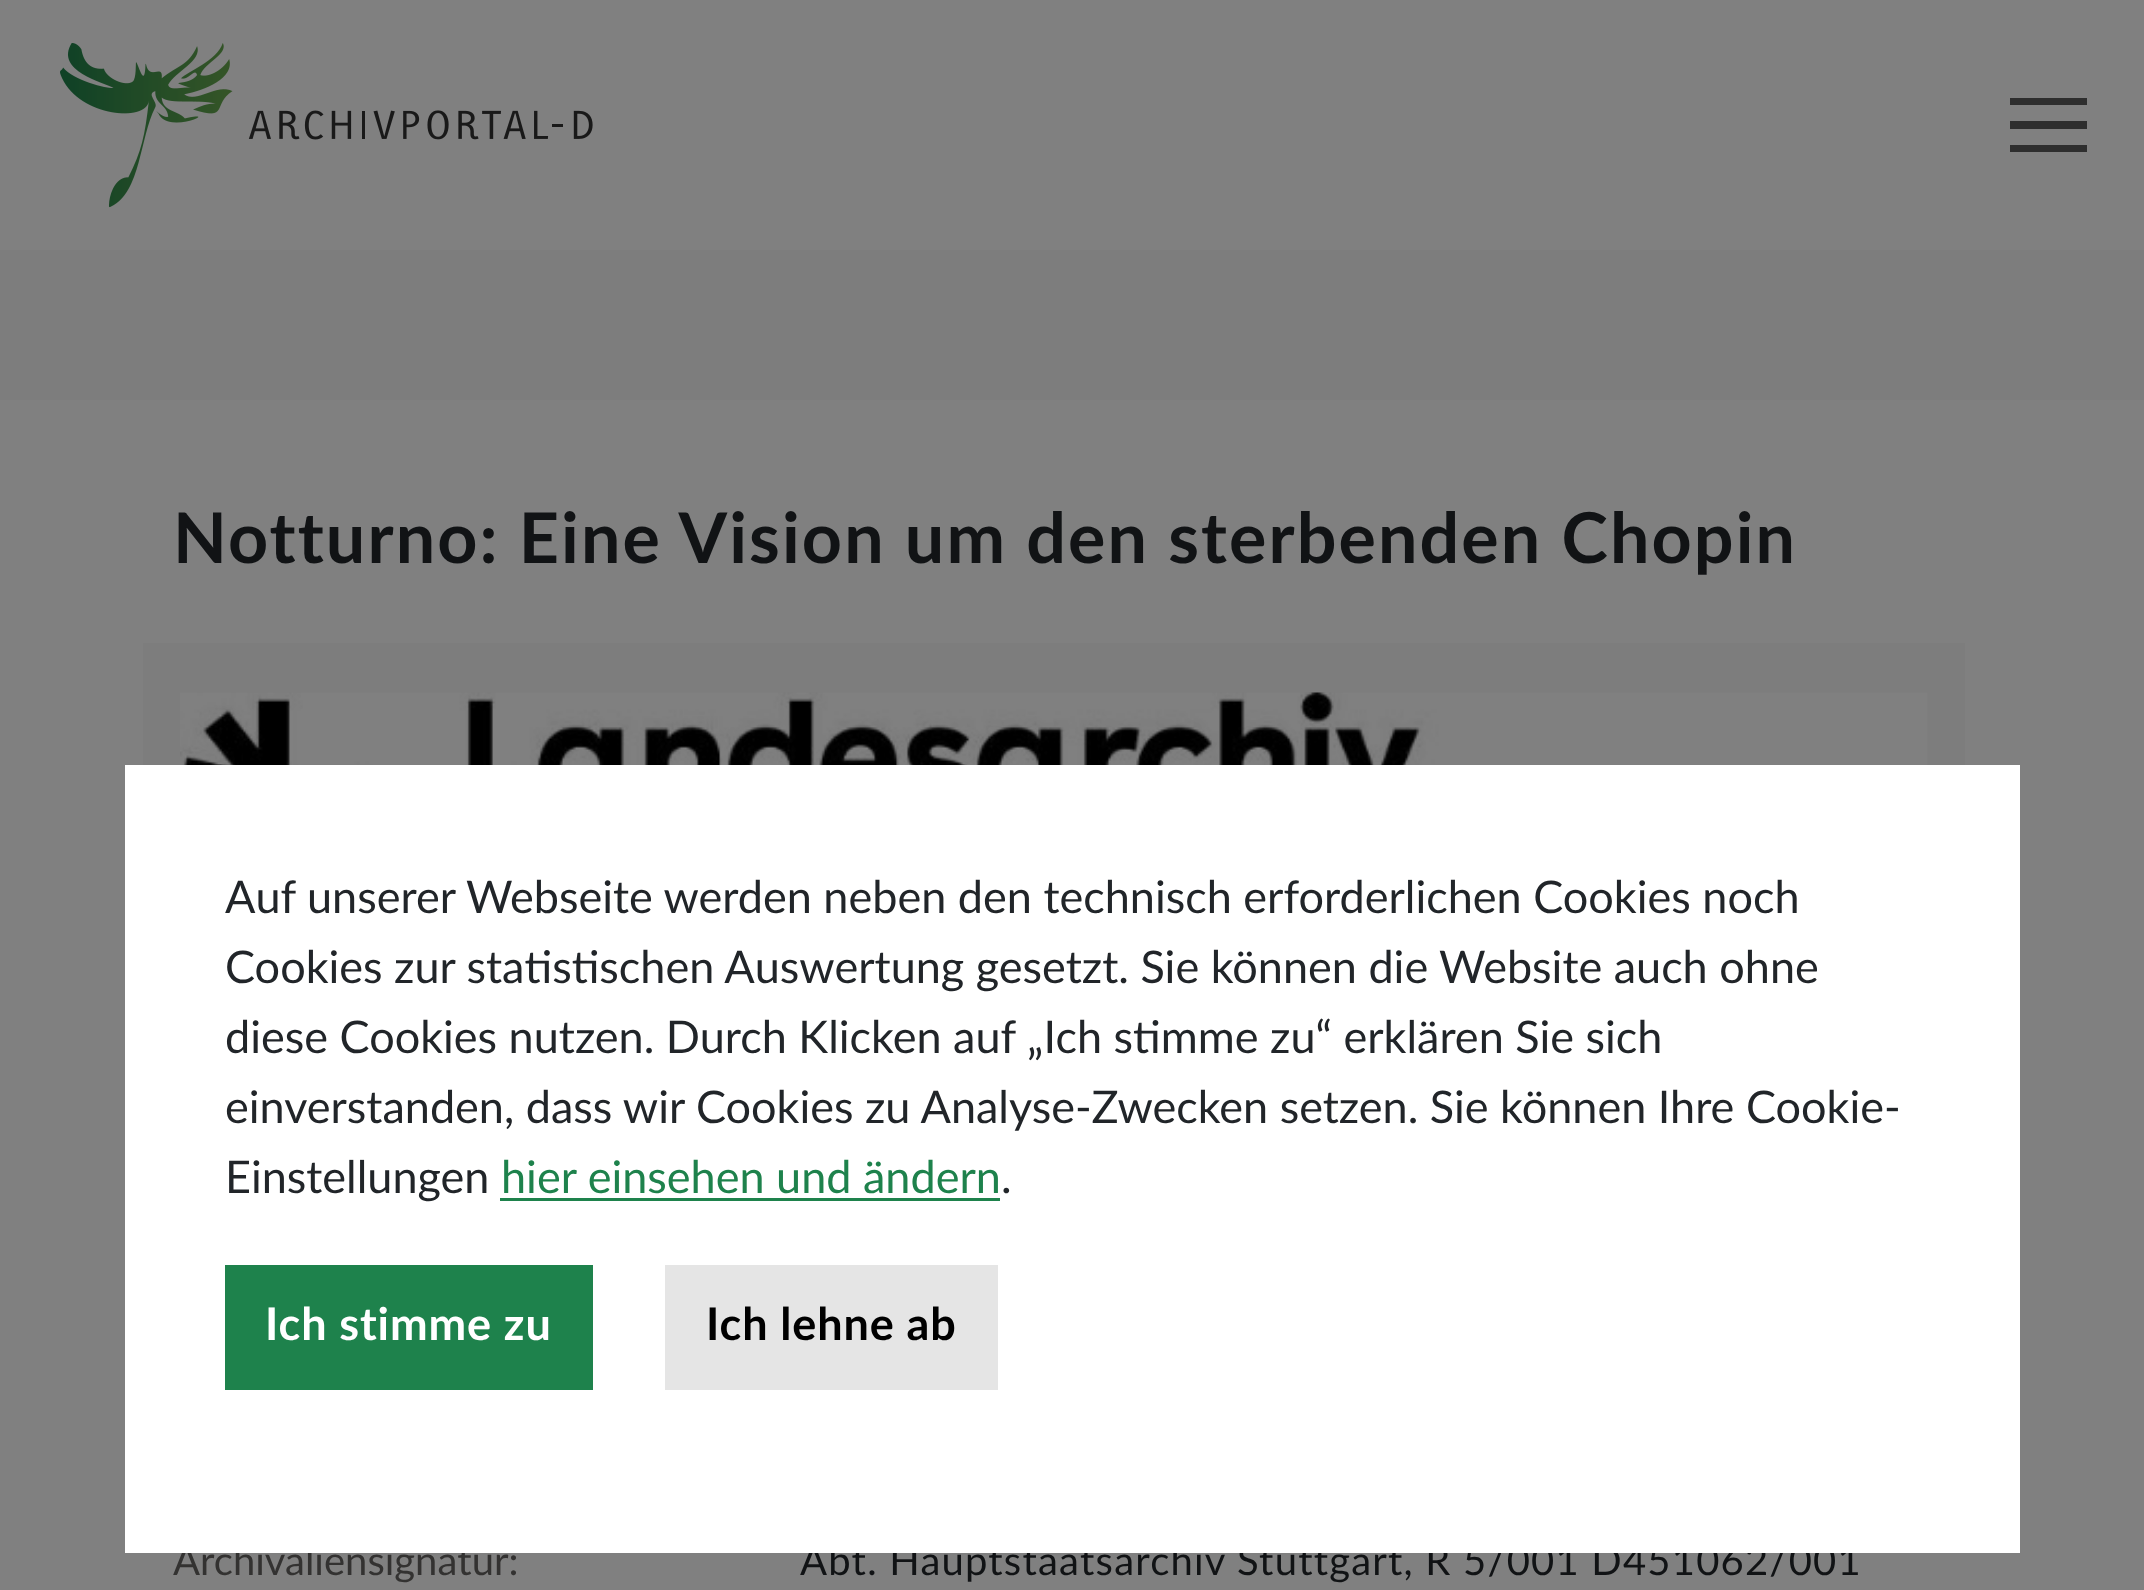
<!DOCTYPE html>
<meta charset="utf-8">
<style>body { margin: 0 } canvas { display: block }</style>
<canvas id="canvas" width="2144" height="1590"></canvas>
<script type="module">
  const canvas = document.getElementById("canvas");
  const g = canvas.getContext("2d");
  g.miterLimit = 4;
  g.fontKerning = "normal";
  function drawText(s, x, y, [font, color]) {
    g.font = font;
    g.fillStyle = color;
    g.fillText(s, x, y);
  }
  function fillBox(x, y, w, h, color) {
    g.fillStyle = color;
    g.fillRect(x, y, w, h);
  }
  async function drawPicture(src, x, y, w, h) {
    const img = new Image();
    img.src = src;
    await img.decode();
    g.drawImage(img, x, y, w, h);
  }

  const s1 = ["bold 70px Lato", "#111315"];
  const s2 = ["40px Lato", "#333231"];
  const s3 = ["40px Lato", "#111315"];
  const s4 = ["45px Lato", "#212529"];
  const s5 = ["45px Lato", "#1E824C"];
  const s6 = ["bold 45px Lato", "#FFFFFF"];
  const s7 = ["bold 45px Lato", "#000000"];

  fillBox(0, 0, 2144, 1590, "#808080");
  await drawPicture("pic1.png", 60, 43, 533, 165);
  g.fillStyle = "#2E2E2E";
  g.beginPath();
  g.moveTo(2087, 105);
  g.lineTo(2010, 105);
  g.lineTo(2010, 98);
  g.lineTo(2087, 98);
  g.closePath();
  g.moveTo(2087, 129);
  g.lineTo(2010, 129);
  g.lineTo(2010, 121);
  g.lineTo(2087, 121);
  g.closePath();
  g.moveTo(2010, 152);
  g.lineTo(2087, 152);
  g.lineTo(2087, 145);
  g.lineTo(2010, 145);
  g.closePath();
  g.fill("evenodd");
  fillBox(0, 250, 2144, 150, "#7D7D7D");
  g.letterSpacing = "2.1px";
  drawText("Notturno: Eine Vision um den sterbenden Chopin", 173, 563, s1);
  fillBox(143, 643, 1822, 122, "#7D7D7D");
  await drawPicture("pic2.png", 180, 692, 1748, 73);
  g.letterSpacing = "0px";
  drawText("Archivaliensignatur:", 173, 1575, s2);
  g.letterSpacing = "1.2px";
  drawText("Abt. Hauptstaatsarchiv Stuttgart, R 5/001 D451062/001", 800, 1575, s3);
  fillBox(125, 765, 1895, 788, "#FFFFFF");
  g.letterSpacing = "0px";
  drawText("Auf unserer Webseite werden neben den technisch erforderlichen Cookies noch", 225, 913, s4);
  drawText("Cookies zur statistischen Auswertung gesetzt. Sie können die Website auch ohne", 225, 983, s4);
  drawText("diese Cookies nutzen. Durch Klicken auf „Ich stimme zu“ erklären Sie sich", 225, 1053, s4);
  drawText("einverstanden, dass wir Cookies zu Analyse-Zwecken setzen. Sie können Ihre Cookie-", 225, 1123, s4);
  drawText("Einstellungen", 225, 1193, s4);
  drawText("hier einsehen und ändern", 501, 1193, s5);
  fillBox(500, 1198, 500, 3, "#1E824C");
  drawText(".", 1001, 1193, s4);
  fillBox(225, 1265, 368, 125, "#1E824C");
  g.letterSpacing = "0.9px";
  drawText("Ich stimme zu", 265, 1340, s6);
  fillBox(665, 1265, 333, 125, "#E5E5E5");
  drawText("Ich lehne ab", 706, 1340, s7);
</script>
